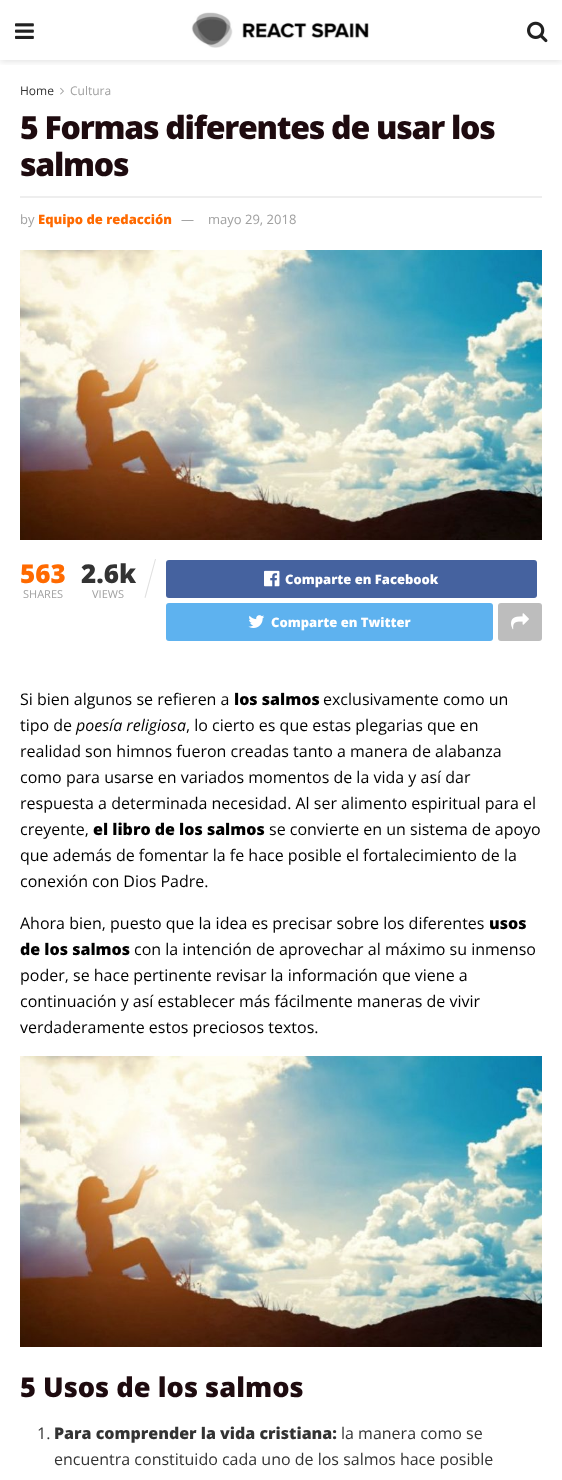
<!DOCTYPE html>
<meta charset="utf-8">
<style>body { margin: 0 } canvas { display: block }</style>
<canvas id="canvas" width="562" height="1480"></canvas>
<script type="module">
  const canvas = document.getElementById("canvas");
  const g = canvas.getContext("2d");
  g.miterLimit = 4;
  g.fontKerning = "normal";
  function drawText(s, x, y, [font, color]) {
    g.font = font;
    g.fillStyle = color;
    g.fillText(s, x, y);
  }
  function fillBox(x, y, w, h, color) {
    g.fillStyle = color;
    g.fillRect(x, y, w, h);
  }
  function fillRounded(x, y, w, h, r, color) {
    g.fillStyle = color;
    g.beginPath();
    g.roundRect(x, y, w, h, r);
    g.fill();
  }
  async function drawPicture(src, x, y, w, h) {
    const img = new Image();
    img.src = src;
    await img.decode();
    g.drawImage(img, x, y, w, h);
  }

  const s1 = ["12px Open Sans", "#333333"];
  const s2 = ["12px Open Sans", "#A0A0A0"];
  const s3 = ["800 32px Open Sans", "#1E0B0F"];
  const s4 = ["13px Open Sans", "#A0A0A0"];
  const s5 = ["800 13px Open Sans", "#FF6A00"];
  const s6 = ["800 26px Open Sans", "#FF6A00"];
  const s7 = ["11px Open Sans", "#A0A0A0"];
  const s8 = ["800 26px Open Sans", "#333333"];
  const s9 = ["800 13px Open Sans", "#FFFFFF"];
  const s10 = ["16px Open Sans", "#000000"];
  const s11 = ["800 16px Open Sans", "#000000"];
  const s12 = ["italic 16px Open Sans", "#000000"];
  const s13 = ["800 27.25px Open Sans", "#1E0B0F"];
  const s14 = ["16px Open Sans", "#333333"];
  const s15 = ["800 16px Open Sans", "#333333"];

  fillBox(0, 0, 562, 1480, "#FFFFFF");
  g.save();
  g.beginPath();
  g.rect(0, 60, 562, 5);
  g.clip();
  g.fillStyle = "rgba(0, 0, 0, 0.1)";
  g.filter = "blur(3px)";
  g.beginPath();
  g.rect(0, 2, 562, 60);
  g.fill();
  g.filter = "none";
  g.restore();
  await drawPicture("pic1.png", 15, 23, 19, 16);
  await drawPicture("pic2.png", 191, 12, 178, 36);
  await drawPicture("pic3.png", 527, 21, 21, 22);
  drawText("Home", 20, 95, s1);
  await drawPicture("pic4.png", 60, 87, 4, 8);
  drawText("Cultura", 70, 95, s2);
  g.letterSpacing = "-1.25px";
  drawText("5 Formas diferentes de usar los", 20, 139, s3);
  drawText("salmos", 20, 176, s3);
  fillBox(20, 196, 522, 2, "#EEEEEE");
  g.letterSpacing = "0px";
  drawText("by", 20, 224, s4);
  drawText("Equipo de redacción", 38, 224, s5);
  drawText("—", 181, 224, s4);
  drawText("mayo 29, 2018", 208, 224, s4);
  await drawPicture("pic5.png", 20, 250, 522, 290);
  drawText("563", 20, 583, s6);
  drawText("SHARES", 23, 598, s7);
  drawText("2.6k", 81, 583, s8);
  g.fillStyle = "#E0E0E0";
  g.beginPath();
  g.moveTo(155, 559);
  g.lineTo(156, 559);
  g.lineTo(145.5, 598);
  g.lineTo(144.5, 597.5);
  g.closePath();
  g.fill();
  drawText("VIEWS", 92, 598, s7);
  fillRounded(166, 560, 371, 38, 3, "#45629F");
  await drawPicture("pic6.png", 264, 570, 16, 17);
  drawText("Comparte en Facebook", 285, 584, s9);
  fillRounded(166, 603, 327, 38, 3, "#5EB2EF");
  await drawPicture("pic7.png", 248, 615, 17, 13);
  drawText("Comparte en Twitter", 271, 627, s9);
  fillRounded(498, 603, 44, 38, 3, "#BDBDBD");
  await drawPicture("pic8.png", 511, 613, 18, 17);
  drawText("Si bien algunos se refieren a", 20, 705, s10);
  drawText("los salmos", 234, 705, s11);
  drawText("exclusivamente como un", 323, 705, s10);
  drawText("tipo de", 20, 731, s10);
  drawText("poesía religiosa", 76, 731, s12);
  drawText(", lo cierto es que estas plegarias que en", 186, 731, s10);
  drawText("realidad son himnos fueron creadas tanto a manera de alabanza", 20, 757, s10);
  drawText("como para usarse en variados momentos de la vida y así dar", 20, 783, s10);
  drawText("respuesta a determinada necesidad. Al ser alimento espiritual para el", 20, 809, s10);
  drawText("creyente,", 20, 835, s10);
  drawText("el libro de los salmos", 93, 835, s11);
  drawText("se convierte en un sistema de apoyo", 269, 835, s10);
  drawText("que además de fomentar la fe hace posible el fortalecimiento de la", 20, 861, s10);
  drawText("conexión con Dios Padre.", 20, 887, s10);
  drawText("Ahora bien, puesto que la idea es precisar sobre los diferentes", 20, 929, s10);
  drawText("usos", 489, 929, s11);
  drawText("de los salmos", 20, 955, s11);
  drawText("con la intención de aprovechar al máximo su inmenso", 134, 955, s10);
  drawText("poder, se hace pertinente revisar la información que viene a", 20, 981, s10);
  drawText("continuación y así establecer más fácilmente maneras de vivir", 20, 1007, s10);
  drawText("verdaderamente estos preciosos textos.", 20, 1033, s10);
  await drawPicture("pic9.png", 20, 1056, 522, 291);
  drawText("5 Usos de los salmos", 20, 1397, s13);
  drawText("1.", 37, 1439, s14);
  drawText("Para comprender la vida cristiana:", 54, 1439, s15);
  drawText("la manera como se", 341, 1439, s14);
  drawText("encuentra constituido cada uno de los salmos hace posible", 54, 1465, s14);
</script>
